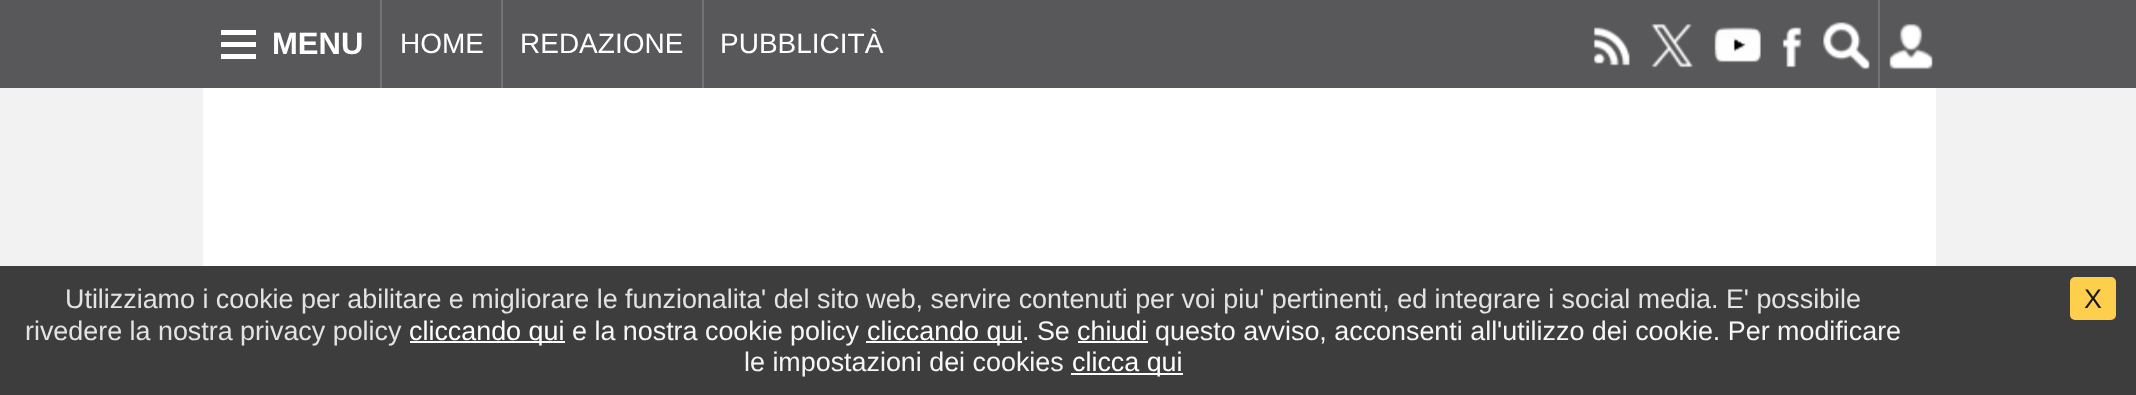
<!DOCTYPE html>
<meta charset="utf-8">
<style>body { margin: 0 } canvas { display: block }</style>
<canvas id="canvas" width="2136" height="395"></canvas>
<script type="module">
  const canvas = document.getElementById("canvas");
  const g = canvas.getContext("2d");
  g.miterLimit = 4;
  g.fontKerning = "normal";
  function drawText(s, x, y, [font, color]) {
    g.font = font;
    g.fillStyle = color;
    g.fillText(s, x, y);
  }
  function fillBox(x, y, w, h, color) {
    g.fillStyle = color;
    g.fillRect(x, y, w, h);
  }
  function fillRounded(x, y, w, h, r, color) {
    g.fillStyle = color;
    g.beginPath();
    g.roundRect(x, y, w, h, r);
    g.fill();
  }
  async function drawPicture(src, x, y, w, h) {
    const img = new Image();
    img.src = src;
    await img.decode();
    g.drawImage(img, x, y, w, h);
  }

  const s1 = ["bold 31px Liberation Sans", "#FFFFFF"];
  const s2 = ["28px Liberation Sans", "#FFFFFF"];
  const s3 = ["26.88px Liberation Sans", "#E3E3E3"];
  const s4 = ["26.88px Liberation Sans", "#FFFFFF"];
  const s5 = ["26.88px Liberation Sans", "#F6F6F6"];
  const s6 = ["26.88px Liberation Sans", "#181818"];

  fillBox(0, 0, 2136, 395, "#F2F2F2");
  fillBox(0, 266, 2136, 129, "#3D3D3D");
  fillBox(0, 0, 2136, 88, "#58585A");
  fillBox(221, 30, 35, 5, "#FFFFFF");
  fillBox(221, 42, 35, 5, "#FFFFFF");
  fillBox(221, 54, 35, 5, "#FFFFFF");
  drawText("MENU", 272, 54, s1);
  fillBox(380, 0, 2, 88, "#737373");
  drawText("HOME", 400, 53, s2);
  fillBox(501, 0, 2, 88, "#737373");
  drawText("REDAZIONE", 520, 53, s2);
  fillBox(702, 0, 2, 88, "#737373");
  drawText("PUBBLICITÀ", 720, 53, s2);
  await drawPicture("pic1.png", 1593, 27, 37, 39);
  await drawPicture("pic2.png", 1651, 23, 42, 45);
  await drawPicture("pic3.png", 1714, 27, 47, 36);
  await drawPicture("pic4.png", 1782, 27, 20, 41);
  await drawPicture("pic5.png", 1823, 22, 47, 48);
  fillBox(1878, 0, 2, 88, "#737373");
  await drawPicture("pic6.png", 1889, 23, 44, 47);
  fillBox(203, 88, 1733, 178, "#FFFFFF");
  drawText("Utilizziamo i cookie per abilitare e migliorare le funzionalita' del sito web, servire contenuti per voi piu' pertinenti, ed integrare i social media. E' possibile", 65, 308, s3);
  drawText("rivedere la nostra privacy policy", 25, 340, s3);
  fillBox(410, 341, 155, 2, "#FFFFFF");
  drawText("cliccando qui", 409, 340, s4);
  drawText("e la nostra cookie policy", 572, 340, s5);
  fillBox(866, 341, 156, 2, "#FFFFFF");
  drawText("cliccando qui", 867, 340, s4);
  drawText(". Se", 1022, 340, s5);
  drawText("chiudi", 1077, 340, s4);
  fillBox(1078, 341, 70, 2, "#FFFFFF");
  drawText("questo avviso, acconsenti all'utilizzo dei cookie. Per modificare", 1155, 340, s5);
  drawText("le impostazioni dei cookies", 744, 371, s5);
  fillBox(1071, 373, 112, 2, "#FFFFFF");
  drawText("clicca qui", 1072, 371, s4);
  fillRounded(2070, 277, 46, 43, 5, "#FECF4C");
  drawText("X", 2084, 308, s6);
</script>
